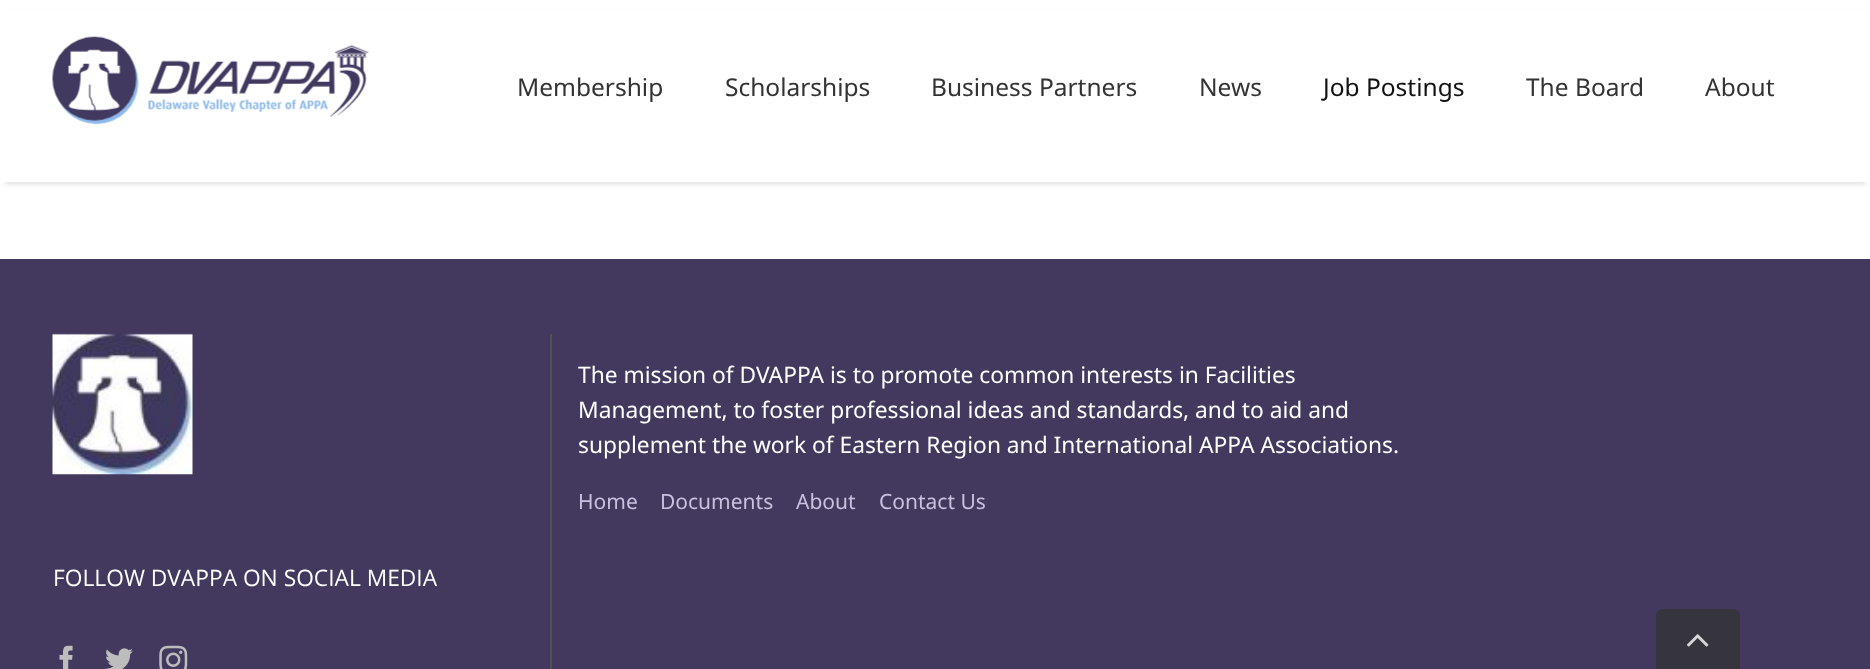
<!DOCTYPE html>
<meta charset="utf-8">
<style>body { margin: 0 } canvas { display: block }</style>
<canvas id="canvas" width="1870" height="669"></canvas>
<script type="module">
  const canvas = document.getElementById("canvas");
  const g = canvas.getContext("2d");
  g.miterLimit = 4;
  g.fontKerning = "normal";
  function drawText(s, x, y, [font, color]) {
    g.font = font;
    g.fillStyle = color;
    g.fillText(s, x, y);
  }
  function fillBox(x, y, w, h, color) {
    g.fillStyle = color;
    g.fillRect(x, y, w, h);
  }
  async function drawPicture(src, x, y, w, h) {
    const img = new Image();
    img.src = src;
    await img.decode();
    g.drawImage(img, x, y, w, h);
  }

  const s1 = ["24.5px Noto Sans", "#333333"];
  const s2 = ["24.5px Noto Sans", "#111111"];
  const s3 = ["22.75px Noto Sans", "#FFFFFF"];
  const s4 = ["21px Noto Sans", "#C8C1E0"];
  const s5 = ["22.75px Open Sans", "#FFFFFF"];

  fillBox(0, 0, 1870, 669, "#FFFFFF");
  g.fillStyle = "rgba(0, 0, 0, 0.12)";
  g.filter = "blur(2.5px)";
  g.beginPath();
  g.rect(5, 12, 1861, 172);
  g.fill();
  g.filter = "none";
  fillBox(2, 9, 1867, 173, "#FFFFFF");
  await drawPicture("pic1.png", 52, 36, 317, 89);
  drawText("Membership", 517, 96, s1);
  drawText("Scholarships", 725, 96, s1);
  drawText("Business Partners", 931, 96, s1);
  drawText("News", 1199, 96, s1);
  drawText("Job Postings", 1323, 96, s2);
  drawText("The Board", 1526, 96, s1);
  drawText("About", 1705, 96, s1);
  fillBox(0, 259, 1870, 410, "#43395E");
  drawText("The mission of DVAPPA is to promote common interests in Facilities", 578, 383, s3);
  drawText("Management, to foster professional ideas and standards, and to aid and", 578, 418, s3);
  drawText("supplement the work of Eastern Region and International APPA Associations.", 578, 453, s3);
  drawText("Home", 578, 509, s4);
  drawText("Documents", 660, 509, s4);
  drawText("About", 796, 509, s4);
  drawText("Contact Us", 879, 509, s4);
  fillBox(550, 334, 2, 335, "#505152");
  await drawPicture("pic2.png", 52, 333, 141, 142);
  drawText("FOLLOW DVAPPA ON SOCIAL MEDIA", 53, 586, s5);
  await drawPicture("pic3.png", 59, 645, 14, 24);
  await drawPicture("pic4.png", 105, 648, 28, 21);
  await drawPicture("pic5.png", 159, 645, 29, 24);
  g.fillStyle = "#36343C";
  g.beginPath();
  g.moveTo(1663, 609);
  g.lineTo(1733, 609);
  g.bezierCurveTo(1737, 609, 1740, 612, 1740, 616);
  g.lineTo(1740, 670);
  g.lineTo(1656, 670);
  g.lineTo(1656, 616);
  g.bezierCurveTo(1656, 612, 1659, 609, 1663, 609);
  g.closePath();
  g.fill();
  await drawPicture("pic6.png", 1687, 634, 22, 13);
</script>
